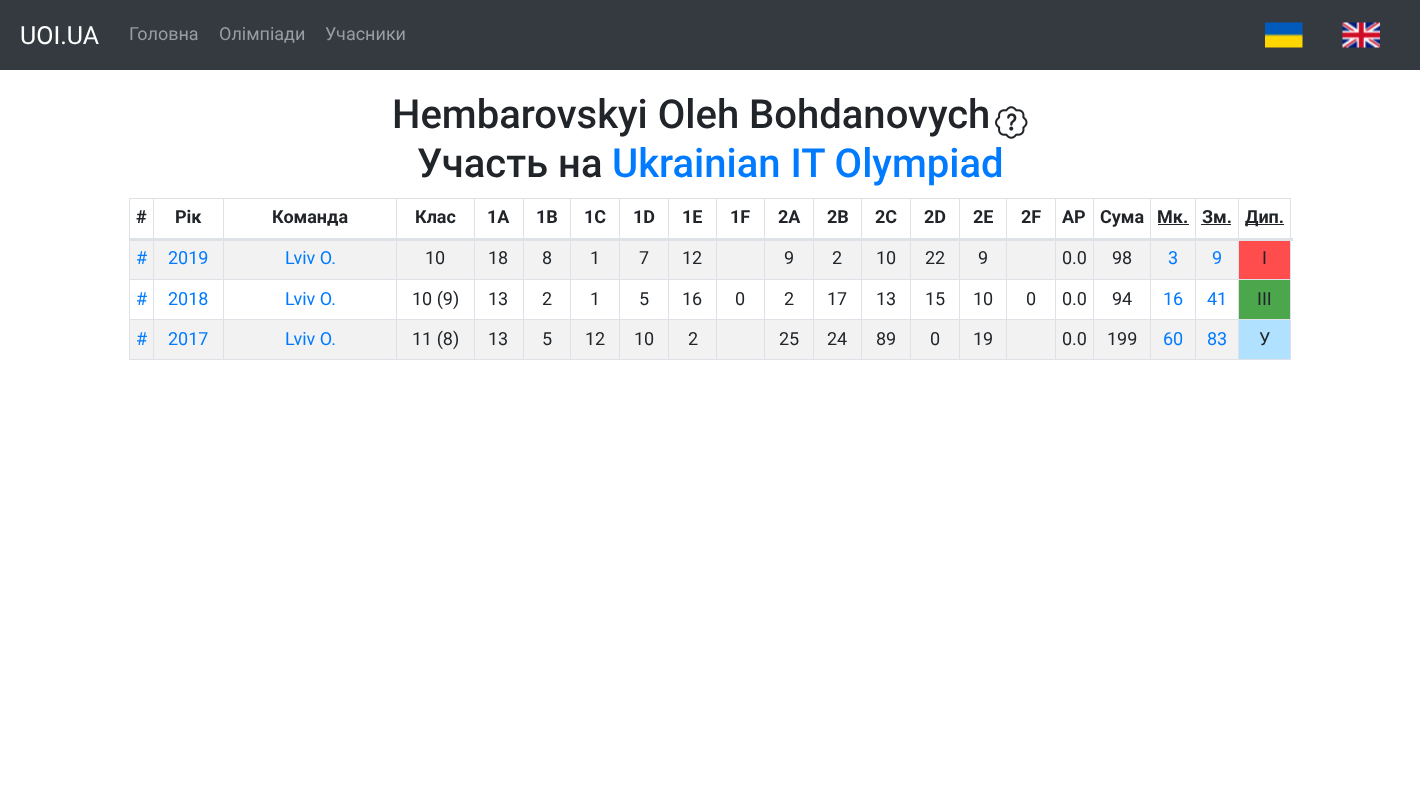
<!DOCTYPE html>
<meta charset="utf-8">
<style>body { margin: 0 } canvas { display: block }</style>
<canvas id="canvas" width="1420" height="805"></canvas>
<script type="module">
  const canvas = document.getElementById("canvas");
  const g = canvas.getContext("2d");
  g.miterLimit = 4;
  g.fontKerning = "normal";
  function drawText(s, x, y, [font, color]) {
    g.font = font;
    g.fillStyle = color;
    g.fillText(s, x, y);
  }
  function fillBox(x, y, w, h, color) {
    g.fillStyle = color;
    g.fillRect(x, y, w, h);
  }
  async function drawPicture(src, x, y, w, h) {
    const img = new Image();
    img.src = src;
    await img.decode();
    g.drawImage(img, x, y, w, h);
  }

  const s1 = ["25px Roboto", "#FFFFFF"];
  const s2 = ["18px Roboto", "#9A9DA0"];
  const s3 = ["500 40px Roboto", "#212529"];
  const s4 = ["500 40px Roboto", "#007BFF"];
  const s5 = ["bold 18px Roboto", "#212529"];
  const s6 = ["18px Roboto", "#007BFF"];
  const s7 = ["18px Roboto", "#212529"];

  fillBox(0, 0, 1420, 805, "#FFFFFF");
  fillBox(0, 0, 1420, 70, "#343A40");
  drawText("UOI.UA", 20, 44, s1);
  drawText("Головна", 129, 40, s2);
  drawText("Олімпіади", 219, 40, s2);
  drawText("Учасники", 325, 40, s2);
  await drawPicture("pic1.png", 1265, 22, 38, 26);
  await drawPicture("pic2.png", 1342, 22, 38, 26);
  drawText("Hembarovskyi Oleh Bohdanovych", 392, 128, s3);
  await drawPicture("pic3.png", 995, 106, 33, 33);
  drawText("Участь на", 417, 177, s3);
  drawText("Ukrainian IT Olympiad", 612, 177, s4);
  fillBox(129, 198, 1162, 1, "#DEE2E6");
  fillBox(1290, 198, 1, 162, "#DEE2E6");
  fillBox(129, 359, 1162, 1, "#DEE2E6");
  fillBox(129, 198, 1, 162, "#DEE2E6");
  drawText("#", 136, 223, s5);
  drawText("Рік", 175, 223, s5);
  drawText("Команда", 272, 223, s5);
  drawText("Клас", 415, 223, s5);
  drawText("1A", 487, 223, s5);
  drawText("1B", 536, 223, s5);
  drawText("1C", 584, 223, s5);
  drawText("1D", 633, 223, s5);
  drawText("1E", 682, 223, s5);
  drawText("1F", 730, 223, s5);
  drawText("2A", 778, 223, s5);
  drawText("2B", 827, 223, s5);
  drawText("2C", 875, 223, s5);
  drawText("2D", 924, 223, s5);
  drawText("2E", 973, 223, s5);
  drawText("2F", 1021, 223, s5);
  drawText("AP", 1062, 223, s5);
  drawText("Сума", 1100, 223, s5);
  drawText("Мк.", 1157, 223, s5);
  fillBox(1158, 224, 31, 1, "#212529");
  drawText("Зм.", 1202, 223, s5);
  fillBox(1201, 224, 30, 1, "#212529");
  fillBox(130, 241, 1108, 38, "#F2F2F2");
  fillBox(1238, 279, 53, 1, "#DEE2E6");
  fillBox(1238, 319, 53, 1, "#DEE2E6");
  fillBox(1238, 319, 1, 41, "#DEE2E6");
  fillBox(1195, 319, 44, 1, "#DEE2E6");
  fillBox(1238, 279, 1, 41, "#DEE2E6");
  fillBox(1195, 279, 44, 1, "#DEE2E6");
  fillBox(130, 320, 1108, 39, "#F2F2F2");
  fillBox(1195, 319, 1, 41, "#DEE2E6");
  fillBox(1150, 319, 46, 1, "#DEE2E6");
  fillBox(1195, 279, 1, 41, "#DEE2E6");
  fillBox(1150, 279, 46, 1, "#DEE2E6");
  fillBox(1150, 319, 1, 41, "#DEE2E6");
  fillBox(1093, 319, 58, 1, "#DEE2E6");
  fillBox(1150, 279, 1, 41, "#DEE2E6");
  fillBox(1093, 279, 58, 1, "#DEE2E6");
  fillBox(1093, 319, 1, 41, "#DEE2E6");
  fillBox(1055, 319, 39, 1, "#DEE2E6");
  fillBox(1093, 279, 1, 41, "#DEE2E6");
  fillBox(1055, 279, 39, 1, "#DEE2E6");
  fillBox(1055, 319, 1, 41, "#DEE2E6");
  fillBox(1006, 319, 50, 1, "#DEE2E6");
  fillBox(1055, 279, 1, 41, "#DEE2E6");
  fillBox(1006, 279, 50, 1, "#DEE2E6");
  fillBox(1006, 319, 1, 41, "#DEE2E6");
  fillBox(959, 319, 49, 1, "#DEE2E6");
  fillBox(1006, 279, 1, 41, "#DEE2E6");
  fillBox(959, 279, 49, 1, "#DEE2E6");
  fillBox(959, 319, 1, 41, "#DEE2E6");
  fillBox(910, 319, 50, 1, "#DEE2E6");
  fillBox(959, 279, 1, 41, "#DEE2E6");
  fillBox(910, 279, 50, 1, "#DEE2E6");
  fillBox(910, 319, 1, 41, "#DEE2E6");
  fillBox(861, 319, 50, 1, "#DEE2E6");
  fillBox(910, 279, 1, 41, "#DEE2E6");
  fillBox(861, 279, 50, 1, "#DEE2E6");
  fillBox(861, 319, 1, 41, "#DEE2E6");
  fillBox(813, 319, 50, 1, "#DEE2E6");
  fillBox(861, 279, 1, 41, "#DEE2E6");
  fillBox(813, 279, 50, 1, "#DEE2E6");
  fillBox(813, 319, 1, 41, "#DEE2E6");
  fillBox(764, 319, 50, 1, "#DEE2E6");
  fillBox(813, 279, 1, 41, "#DEE2E6");
  fillBox(764, 279, 50, 1, "#DEE2E6");
  fillBox(764, 319, 1, 41, "#DEE2E6");
  fillBox(716, 319, 49, 1, "#DEE2E6");
  fillBox(764, 279, 1, 41, "#DEE2E6");
  fillBox(716, 279, 49, 1, "#DEE2E6");
  fillBox(716, 319, 1, 41, "#DEE2E6");
  fillBox(668, 319, 50, 1, "#DEE2E6");
  fillBox(716, 279, 1, 41, "#DEE2E6");
  fillBox(668, 279, 50, 1, "#DEE2E6");
  fillBox(668, 319, 1, 41, "#DEE2E6");
  fillBox(619, 319, 50, 1, "#DEE2E6");
  fillBox(668, 279, 1, 41, "#DEE2E6");
  fillBox(619, 279, 50, 1, "#DEE2E6");
  fillBox(619, 319, 1, 41, "#DEE2E6");
  fillBox(570, 319, 50, 1, "#DEE2E6");
  fillBox(619, 279, 1, 41, "#DEE2E6");
  fillBox(570, 279, 50, 1, "#DEE2E6");
  fillBox(570, 319, 1, 41, "#DEE2E6");
  fillBox(523, 319, 48, 1, "#DEE2E6");
  fillBox(570, 279, 1, 41, "#DEE2E6");
  fillBox(523, 279, 48, 1, "#DEE2E6");
  fillBox(523, 319, 1, 41, "#DEE2E6");
  fillBox(474, 319, 50, 1, "#DEE2E6");
  fillBox(523, 279, 1, 41, "#DEE2E6");
  fillBox(474, 279, 50, 1, "#DEE2E6");
  fillBox(474, 319, 1, 41, "#DEE2E6");
  fillBox(396, 319, 79, 1, "#DEE2E6");
  fillBox(474, 279, 1, 41, "#DEE2E6");
  fillBox(396, 279, 79, 1, "#DEE2E6");
  fillBox(396, 319, 1, 41, "#DEE2E6");
  fillBox(223, 319, 175, 1, "#DEE2E6");
  fillBox(396, 279, 1, 41, "#DEE2E6");
  fillBox(223, 279, 175, 1, "#DEE2E6");
  fillBox(223, 319, 1, 41, "#DEE2E6");
  fillBox(153, 319, 71, 1, "#DEE2E6");
  fillBox(223, 279, 1, 41, "#DEE2E6");
  fillBox(153, 279, 71, 1, "#DEE2E6");
  fillBox(153, 319, 1, 41, "#DEE2E6");
  fillBox(129, 319, 25, 1, "#DEE2E6");
  fillBox(153, 279, 1, 41, "#DEE2E6");
  fillBox(129, 279, 25, 1, "#DEE2E6");
  fillBox(153, 198, 1, 82, "#DEE2E6");
  fillBox(223, 198, 1, 82, "#DEE2E6");
  fillBox(396, 198, 1, 82, "#DEE2E6");
  fillBox(474, 198, 1, 82, "#DEE2E6");
  fillBox(523, 198, 1, 82, "#DEE2E6");
  fillBox(570, 198, 1, 82, "#DEE2E6");
  fillBox(619, 198, 1, 82, "#DEE2E6");
  fillBox(668, 198, 1, 82, "#DEE2E6");
  fillBox(716, 198, 1, 82, "#DEE2E6");
  fillBox(764, 198, 1, 82, "#DEE2E6");
  fillBox(813, 198, 1, 82, "#DEE2E6");
  fillBox(861, 198, 1, 82, "#DEE2E6");
  fillBox(910, 198, 1, 82, "#DEE2E6");
  fillBox(959, 198, 1, 82, "#DEE2E6");
  fillBox(1006, 198, 1, 82, "#DEE2E6");
  fillBox(1055, 198, 1, 82, "#DEE2E6");
  fillBox(1093, 198, 1, 82, "#DEE2E6");
  fillBox(1150, 198, 1, 82, "#DEE2E6");
  fillBox(1195, 198, 1, 82, "#DEE2E6");
  fillBox(1238, 198, 1, 82, "#DEE2E6");
  fillBox(129, 238, 1164, 3, "#DEE2E6");
  fillBox(1245, 224, 39, 1, "#212529");
  drawText("Дип.", 1245, 223, s5);
  drawText("#", 136, 264, s6);
  drawText("2019", 168, 264, s6);
  drawText("Lviv O.", 285, 264, s6);
  drawText("10", 425, 264, s7);
  drawText("18", 488, 264, s7);
  drawText("8", 542, 264, s7);
  drawText("1", 590, 264, s7);
  drawText("7", 639, 264, s7);
  drawText("12", 682, 264, s7);
  drawText("9", 784, 264, s7);
  drawText("2", 832, 264, s7);
  drawText("10", 876, 264, s7);
  drawText("22", 925, 264, s7);
  drawText("9", 978, 264, s7);
  drawText("0.0", 1062, 264, s7);
  drawText("98", 1112, 264, s7);
  drawText("3", 1168, 264, s6);
  drawText("9", 1212, 264, s6);
  fillBox(1239, 241, 51, 38, "#FF4C4C");
  drawText("I", 1262, 264, s7);
  drawText("#", 136, 305, s6);
  drawText("2018", 168, 305, s6);
  drawText("Lviv O.", 285, 305, s6);
  drawText("10 (9)", 412, 305, s7);
  drawText("13", 488, 305, s7);
  drawText("2", 542, 305, s7);
  drawText("1", 590, 305, s7);
  drawText("5", 639, 305, s7);
  drawText("16", 682, 305, s7);
  drawText("0", 735, 305, s7);
  drawText("2", 784, 305, s7);
  drawText("17", 827, 305, s7);
  drawText("13", 876, 305, s7);
  drawText("15", 925, 305, s7);
  drawText("10", 973, 305, s7);
  drawText("0", 1026, 305, s7);
  drawText("0.0", 1062, 305, s7);
  drawText("94", 1112, 305, s7);
  drawText("16", 1163, 305, s6);
  drawText("41", 1207, 305, s6);
  fillBox(1239, 280, 51, 39, "#4CA64C");
  drawText("III", 1257, 305, s7);
  drawText("#", 136, 345, s6);
  drawText("2017", 168, 345, s6);
  drawText("Lviv O.", 285, 345, s6);
  drawText("11 (8)", 412, 345, s7);
  drawText("13", 488, 345, s7);
  drawText("5", 542, 345, s7);
  drawText("12", 585, 345, s7);
  drawText("10", 634, 345, s7);
  drawText("2", 688, 345, s7);
  drawText("25", 779, 345, s7);
  drawText("24", 827, 345, s7);
  drawText("89", 876, 345, s7);
  drawText("0", 930, 345, s7);
  drawText("19", 973, 345, s7);
  drawText("0.0", 1062, 345, s7);
  drawText("199", 1107, 345, s7);
  drawText("60", 1163, 345, s6);
  drawText("83", 1207, 345, s6);
  fillBox(1239, 320, 51, 39, "#B0E2FF");
  drawText("У", 1259, 345, s7);
</script>
